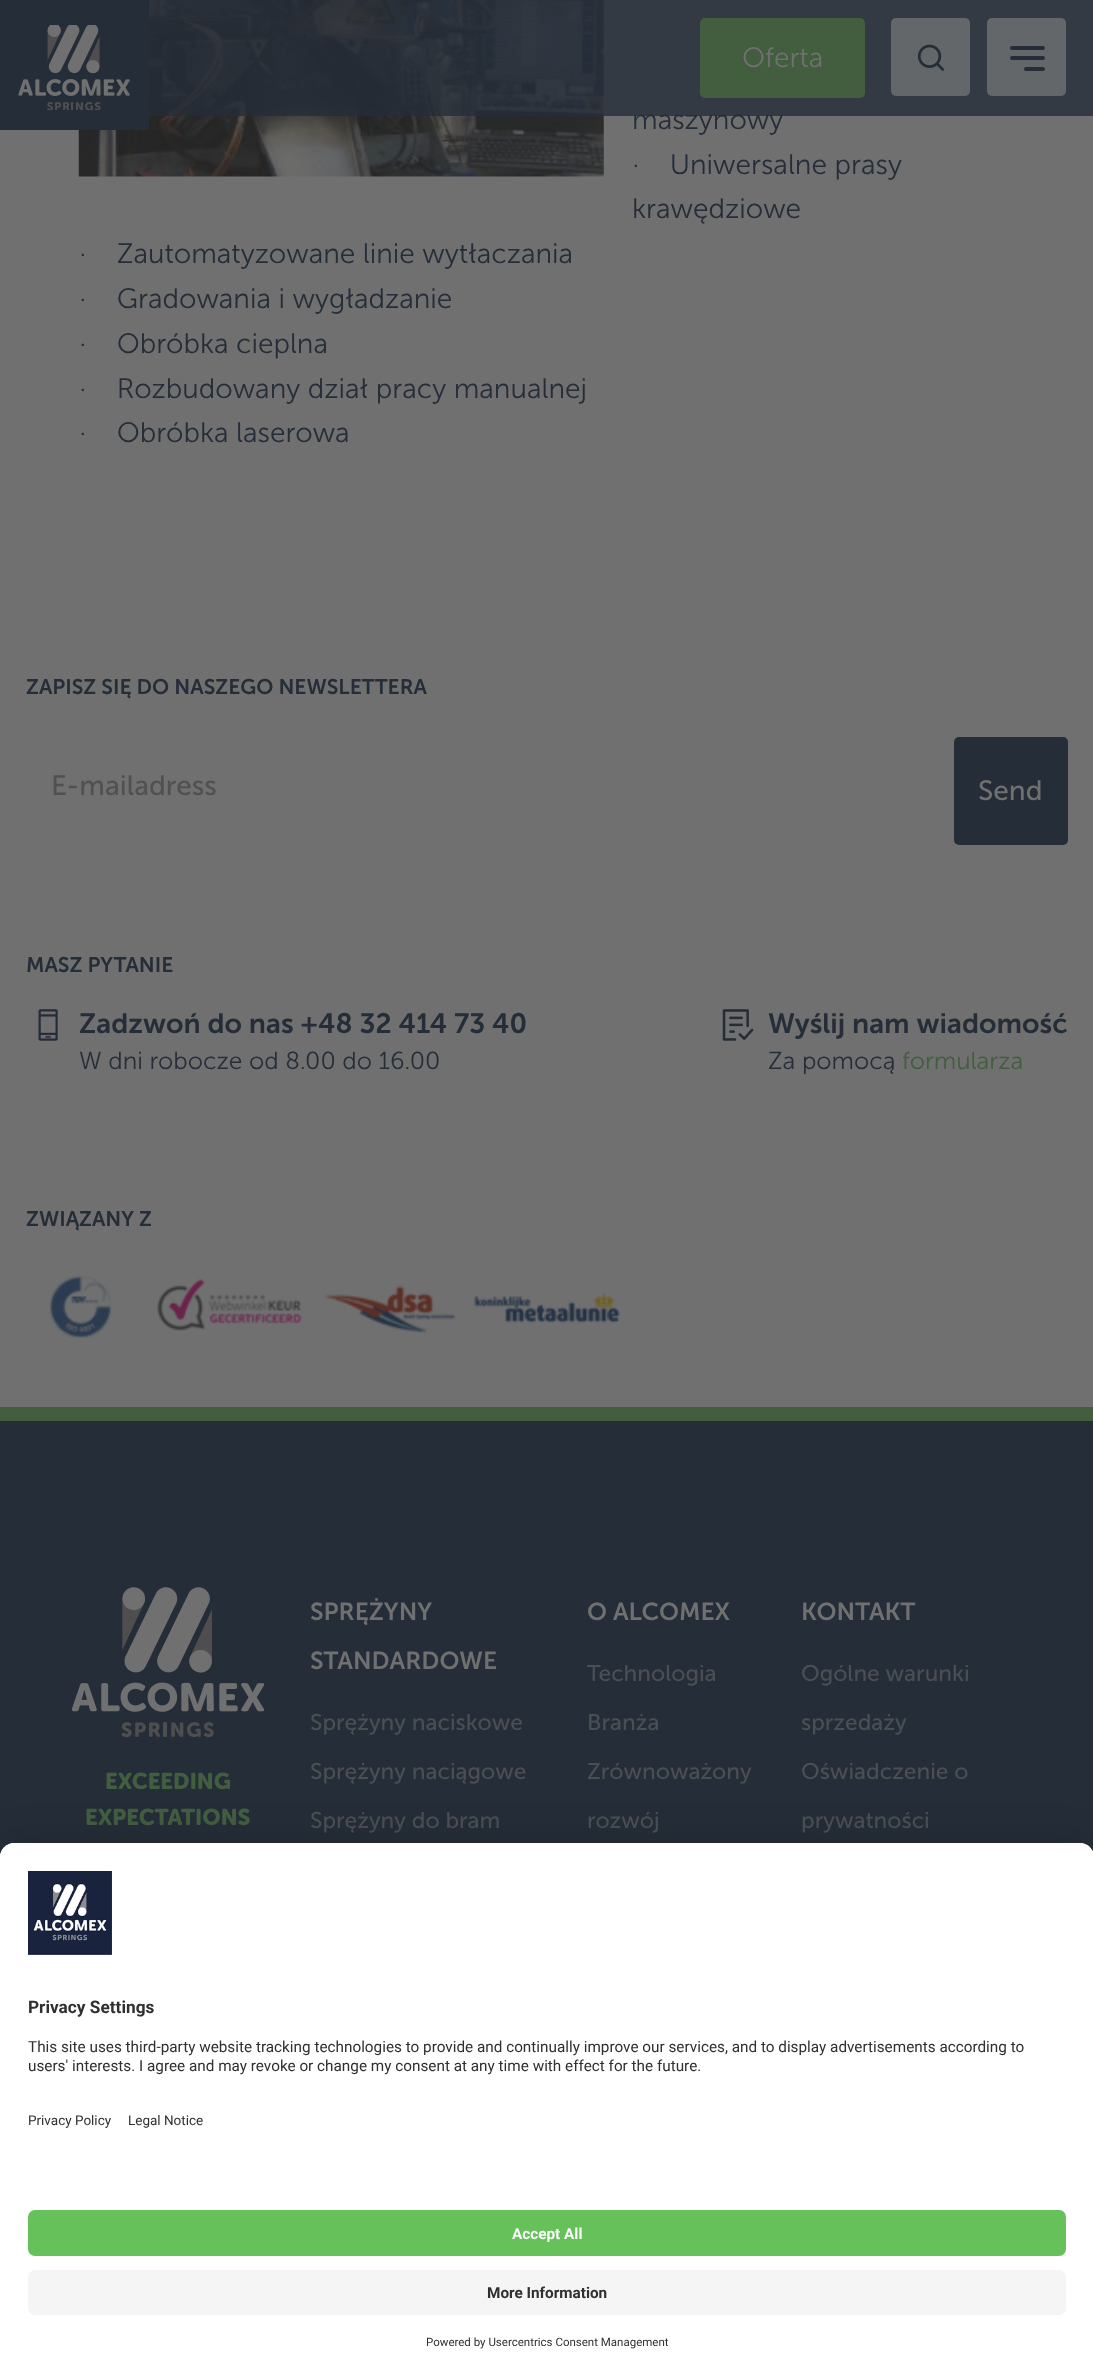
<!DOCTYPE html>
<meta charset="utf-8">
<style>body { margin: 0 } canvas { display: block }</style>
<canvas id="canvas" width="1093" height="2378"></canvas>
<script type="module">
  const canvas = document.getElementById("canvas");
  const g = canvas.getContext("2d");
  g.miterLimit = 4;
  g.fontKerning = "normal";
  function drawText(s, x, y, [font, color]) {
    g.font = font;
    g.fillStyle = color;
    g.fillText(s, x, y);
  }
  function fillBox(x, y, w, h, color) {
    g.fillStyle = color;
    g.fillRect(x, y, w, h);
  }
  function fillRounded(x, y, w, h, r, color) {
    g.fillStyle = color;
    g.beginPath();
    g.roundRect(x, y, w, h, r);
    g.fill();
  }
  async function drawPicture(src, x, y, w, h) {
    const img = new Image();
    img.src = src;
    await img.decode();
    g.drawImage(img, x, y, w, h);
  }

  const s1 = ["300 28px Museo Sans", "#252D38"];
  const s2 = ["300 28px Museo Sans", "#707070"];
  const s3 = ["600 21px Museo Sans", "#252D38"];
  const s4 = ["28px Museo Sans", "#515151"];
  const s5 = ["28px Museo Sans", "#707070"];
  const s6 = ["600 28px Museo Sans", "#252D38"];
  const s7 = ["300 24.5px Museo Sans", "#252D38"];
  const s8 = ["300 24.5px Museo Sans", "#425E3F"];
  const s9 = ["bold 22.75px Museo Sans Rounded", "#425E3F"];
  const s10 = ["600 24.5px Museo Sans", "#707070"];
  const s11 = ["22.75px Museo Sans", "#4B4F54"];
  const s12 = ["bold 17.25px Roboto", "#303030"];
  const s13 = ["15.3px Roboto", "#303030"];
  const s14 = ["13.5px Roboto", "#303030"];
  const s15 = ["bold 15.3px Roboto", "#FAFAFA"];
  const s16 = ["bold 15.3px Roboto", "#303030"];
  const s17 = ["11.5px Roboto", "#303030"];

  fillBox(0, 0, 1093, 2378, "#707070");
  await drawPicture("pic3.png", 78, 0, 526, 177);
  fillBox(0, 0, 149, 130, "#252D38");
  await drawPicture("pic1.png", 18, 25, 112, 85);
  drawText("maszynowy", 632, 129, s1);
  fillBox(149, 0, 944, 116, "rgba(37, 45, 56, 0.8)");
  fillRounded(700, 18, 165, 80, 5, "#425E3F");
  drawText("Oferta", 742, 67, s2);
  fillRounded(891, 18, 79, 78, 5, "#636769");
  await drawPicture("pic2.png", 917, 44, 28, 27);
  fillRounded(987, 18, 79, 78, 5, "#636769");
  fillRounded(1010, 56, 35, 4, 2, "#252D38");
  fillRounded(1010, 46, 35, 4, 2, "#252D38");
  fillRounded(1024, 67, 21, 4, 2, "#252D38");
  drawText("·    Uniwersalne prasy", 632, 174, s1);
  drawText("krawędziowe", 632, 218, s1);
  drawText("·    Zautomatyzowane linie wytłaczania", 79, 263, s1);
  drawText("·    Gradowania i wygładzanie", 79, 308, s1);
  drawText("·    Obróbka cieplna", 79, 353, s1);
  drawText("·    Rozbudowany dział pracy manualnej", 79, 398, s1);
  drawText("·    Obróbka laserowa", 79, 442, s1);
  drawText("ZAPISZ SIĘ DO NASZEGO NEWSLETTERA", 26, 694, s3);
  drawText("E-mailadress", 51, 795, s4);
  fillRounded(954, 737, 114, 108, 5, "#252D38");
  drawText("Send", 978, 800, s5);
  drawText("MASZ PYTANIE", 26, 972, s3);
  await drawPicture("pic4.png", 38, 1009, 20, 32);
  drawText("Zadzwoń do nas +48 32 414 73 40", 79, 1033, s6);
  drawText("W dni robocze od 8.00 do 16.00", 79, 1069, s7);
  await drawPicture("pic5.png", 722, 1009, 32, 32);
  drawText("Wyślij nam wiadomość", 768, 1033, s6);
  drawText("Za pomocą", 768, 1069, s7);
  drawText("formularza", 902, 1069, s8);
  drawText("ZWIĄZANY Z", 26, 1226, s3);
  await drawPicture("pic6.png", 26, 1268, 613, 78);
  fillBox(0, 1421, 1093, 436, "#252D38");
  fillBox(0, 1407, 1093, 14, "#425E3F");
  await drawPicture("pic7.png", 72, 1587, 192, 151);
  drawText("EXCEEDING", 105, 1789, s9);
  drawText("EXPECTATIONS", 85, 1825, s9);
  drawText("SPRĘŻYNY", 310, 1620, s10);
  drawText("STANDARDOWE", 310, 1669, s10);
  drawText("Sprężyny naciskowe", 310, 1730, s11);
  drawText("Sprężyny naciągowe", 310, 1779, s11);
  drawText("Sprężyny do bram", 310, 1828, s11);
  drawText("O ALCOMEX", 587, 1620, s10);
  drawText("Technologia", 587, 1681, s11);
  drawText("Branża", 587, 1730, s11);
  drawText("Zrównoważony", 587, 1779, s11);
  drawText("rozwój", 587, 1828, s11);
  drawText("KONTAKT", 801, 1620, s10);
  drawText("Ogólne warunki", 801, 1681, s11);
  drawText("sprzedaży", 801, 1730, s11);
  drawText("Oświadczenie o", 801, 1779, s11);
  drawText("prywatności", 801, 1828, s11);
  g.fillStyle = "rgba(0, 0, 0, 0.22)";
  g.filter = "blur(23px)";
  g.beginPath();
  g.roundRect(0, 1852, 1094, 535, 14);
  g.fill();
  g.filter = "none";
  g.fillStyle = "#FFFFFF";
  g.beginPath();
  g.moveTo(14, 1843);
  g.lineTo(1080, 1843);
  g.bezierCurveTo(1087.5, 1843, 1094, 1849.5, 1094, 1857);
  g.lineTo(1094, 2378);
  g.lineTo(0, 2378);
  g.lineTo(0, 1857);
  g.bezierCurveTo(0, 1849.5, 6.5, 1843, 14, 1843);
  g.closePath();
  g.fill();
  g.beginPath();
  g.moveTo(14, 1843);
  g.lineTo(1080, 1843);
  g.bezierCurveTo(1087.5, 1843, 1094, 1849.5, 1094, 1857);
  g.lineTo(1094, 2189);
  g.lineTo(0, 2189);
  g.lineTo(0, 1857);
  g.bezierCurveTo(0, 1849.5, 6.5, 1843, 14, 1843);
  g.closePath();
  g.fill();
  await drawPicture("pic8.png", 28, 1871, 84, 84);
  drawText("Privacy Settings", 28, 2013, s12);
  drawText("This site uses third-party website tracking technologies to provide and continually improve our services, and to display advertisements according to", 28, 2052, s13);
  drawText("users' interests. I agree and may revoke or change my consent at any time with effect for the future.", 28, 2071, s13);
  drawText("Privacy Policy", 28, 2125, s14);
  drawText("Legal Notice", 128, 2125, s14);
  fillRounded(28, 2210, 1038, 46, 7, "#66C15B");
  drawText("Accept All", 512, 2239, s15);
  fillRounded(28, 2270, 1038, 45, 7, "#F5F5F5");
  drawText("More Information", 487, 2298, s16);
  drawText("Powered by Usercentrics Consent Management", 426, 2346, s17);
</script>
